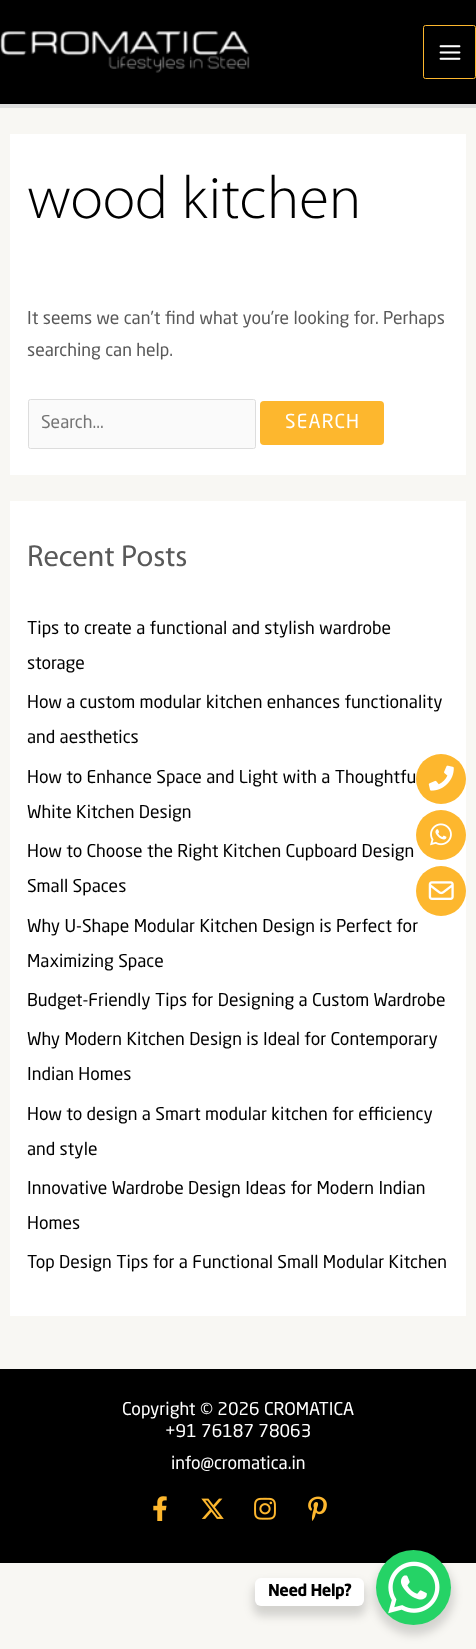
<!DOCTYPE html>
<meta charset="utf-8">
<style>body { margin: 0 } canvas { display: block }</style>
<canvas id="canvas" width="476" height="1649"></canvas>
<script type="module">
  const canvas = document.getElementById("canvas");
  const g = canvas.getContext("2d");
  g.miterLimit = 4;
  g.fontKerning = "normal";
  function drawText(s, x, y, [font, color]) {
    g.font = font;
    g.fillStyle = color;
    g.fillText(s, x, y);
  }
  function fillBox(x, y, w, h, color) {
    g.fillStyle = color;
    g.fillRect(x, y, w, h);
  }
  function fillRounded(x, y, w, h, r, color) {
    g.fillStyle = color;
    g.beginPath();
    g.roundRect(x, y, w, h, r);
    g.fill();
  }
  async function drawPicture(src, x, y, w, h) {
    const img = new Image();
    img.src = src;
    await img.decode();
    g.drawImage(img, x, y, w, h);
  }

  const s1 = ["300 60.75px Myriad", "#000000"];
  const s2 = ["17.5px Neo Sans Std", "#595959"];
  const s3 = ["17.5px Neo Sans Std", "#757575"];
  const s4 = ["19px Neo Sans Std", "#FFFFFF"];
  const s5 = ["30.5px Myriad", "#595959"];
  const s6 = ["17.5px Neo Sans Std", "#000000"];
  const s7 = ["17.5px Neo Sans Std", "#FFFFFF"];
  const s8 = ["bold 16.25px Neo Sans Std", "#000000"];

  fillBox(0, 0, 476, 1649, "#F8F7F3");
  fillBox(0, 0, 476, 104, "#000000");
  fillBox(0, 104, 476, 4, "#DDDDDD");
  await drawPicture("pic1.png", 0, 31, 250, 42);
  g.beginPath();
  g.roundRect(423.5, 25.5, 52, 53, 2);
  g.strokeStyle = "#FDB72E";
  g.stroke();
  await drawPicture("pic2.png", 439, 45, 22, 15);
  fillBox(10, 134, 456, 341, "#FFFFFF");
  drawText("wood kitchen", 27, 218, s1);
  drawText("It seems we can’t find what you’re looking for. Perhaps", 27, 324, s2);
  drawText("searching can help.", 27, 356, s2);
  g.fillStyle = "#FAFAFA";
  g.beginPath();
  g.roundRect(28.5, 399.5, 227, 49, 2);
  g.fill();
  g.strokeStyle = "#DDDDDD";
  g.stroke();
  drawText("Search...", 41, 428, s3);
  fillRounded(260, 401, 124, 44, 4, "#FDB72E");
  g.letterSpacing = "1.25px";
  drawText("SEARCH", 285, 428, s4);
  fillBox(10, 501, 456, 815, "#FFFFFF");
  g.letterSpacing = "0px";
  drawText("Recent Posts", 27, 566, s5);
  drawText("Tips to create a functional and stylish wardrobe", 27, 634, s6);
  drawText("storage", 27, 669, s6);
  drawText("How a custom modular kitchen enhances functionality", 27, 708, s6);
  drawText("and aesthetics", 27, 743, s6);
  drawText("How to Enhance Space and Light with a Thoughtfu", 27, 783, s6);
  drawText("White Kitchen Design", 27, 818, s6);
  drawText("How to Choose the Right Kitchen Cupboard Design", 27, 857, s6);
  drawText("Small Spaces", 27, 892, s6);
  drawText("Why U-Shape Modular Kitchen Design is Perfect for", 27, 932, s6);
  drawText("Maximizing Space", 27, 967, s6);
  drawText("Budget-Friendly Tips for Designing a Custom Wardrobe", 27, 1006, s6);
  drawText("Why Modern Kitchen Design is Ideal for Contemporary", 27, 1045, s6);
  drawText("Indian Homes", 27, 1080, s6);
  drawText("How to design a Smart modular kitchen for efficiency", 27, 1120, s6);
  drawText("and style", 27, 1155, s6);
  drawText("Innovative Wardrobe Design Ideas for Modern Indian", 27, 1194, s6);
  drawText("Homes", 27, 1229, s6);
  drawText("Top Design Tips for a Functional Small Modular Kitchen", 27, 1268, s6);
  fillBox(0, 1369, 476, 194, "#000000");
  drawText("Copyright © 2026 CROMATICA", 122, 1415, s7);
  drawText("+91 76187 78063", 165, 1437, s7);
  drawText("info@cromatica.in", 171, 1469, s7);
  await drawPicture("pic3.png", 153, 1496, 14, 25);
  await drawPicture("pic4.png", 201, 1498, 23, 21);
  await drawPicture("pic5.png", 254, 1497, 22, 23);
  await drawPicture("pic6.png", 308, 1496, 19, 25);
  g.fillStyle = "#FDB72E";
  g.beginPath();
  g.arc(441, 779, 25, 0, Math.PI * 2);
  g.fill();
  await drawPicture("pic7.png", 428, 765, 26, 26);
  g.beginPath();
  g.arc(441, 835, 25, 0, Math.PI * 2);
  g.fill();
  await drawPicture("pic8.png", 430, 823, 22, 23);
  g.beginPath();
  g.arc(441, 891, 25, 0, Math.PI * 2);
  g.fill();
  await drawPicture("pic9.png", 428, 881, 26, 19);
  g.fillStyle = "rgba(0, 0, 0, 0.15)";
  g.filter = "blur(5px)";
  g.beginPath();
  g.roundRect(374, 1555, 80, 80, 40);
  g.fill();
  g.filter = "none";
  g.fillStyle = "#25D366";
  g.beginPath();
  g.arc(413.5, 1587.5, 37.5, 0, Math.PI * 2);
  g.fill();
  g.fillStyle = "rgba(0, 0, 0, 0.15)";
  g.filter = "blur(5px)";
  g.beginPath();
  g.roundRect(253, 1583, 113, 33, 9);
  g.fill();
  g.filter = "none";
  fillRounded(255, 1578, 109, 28, 6, "#FFFFFF");
  g.letterSpacing = "-0.5px";
  drawText("Need Help?", 268, 1596, s8);
  await drawPicture("pic10.png", 388, 1561, 52, 53);
</script>
